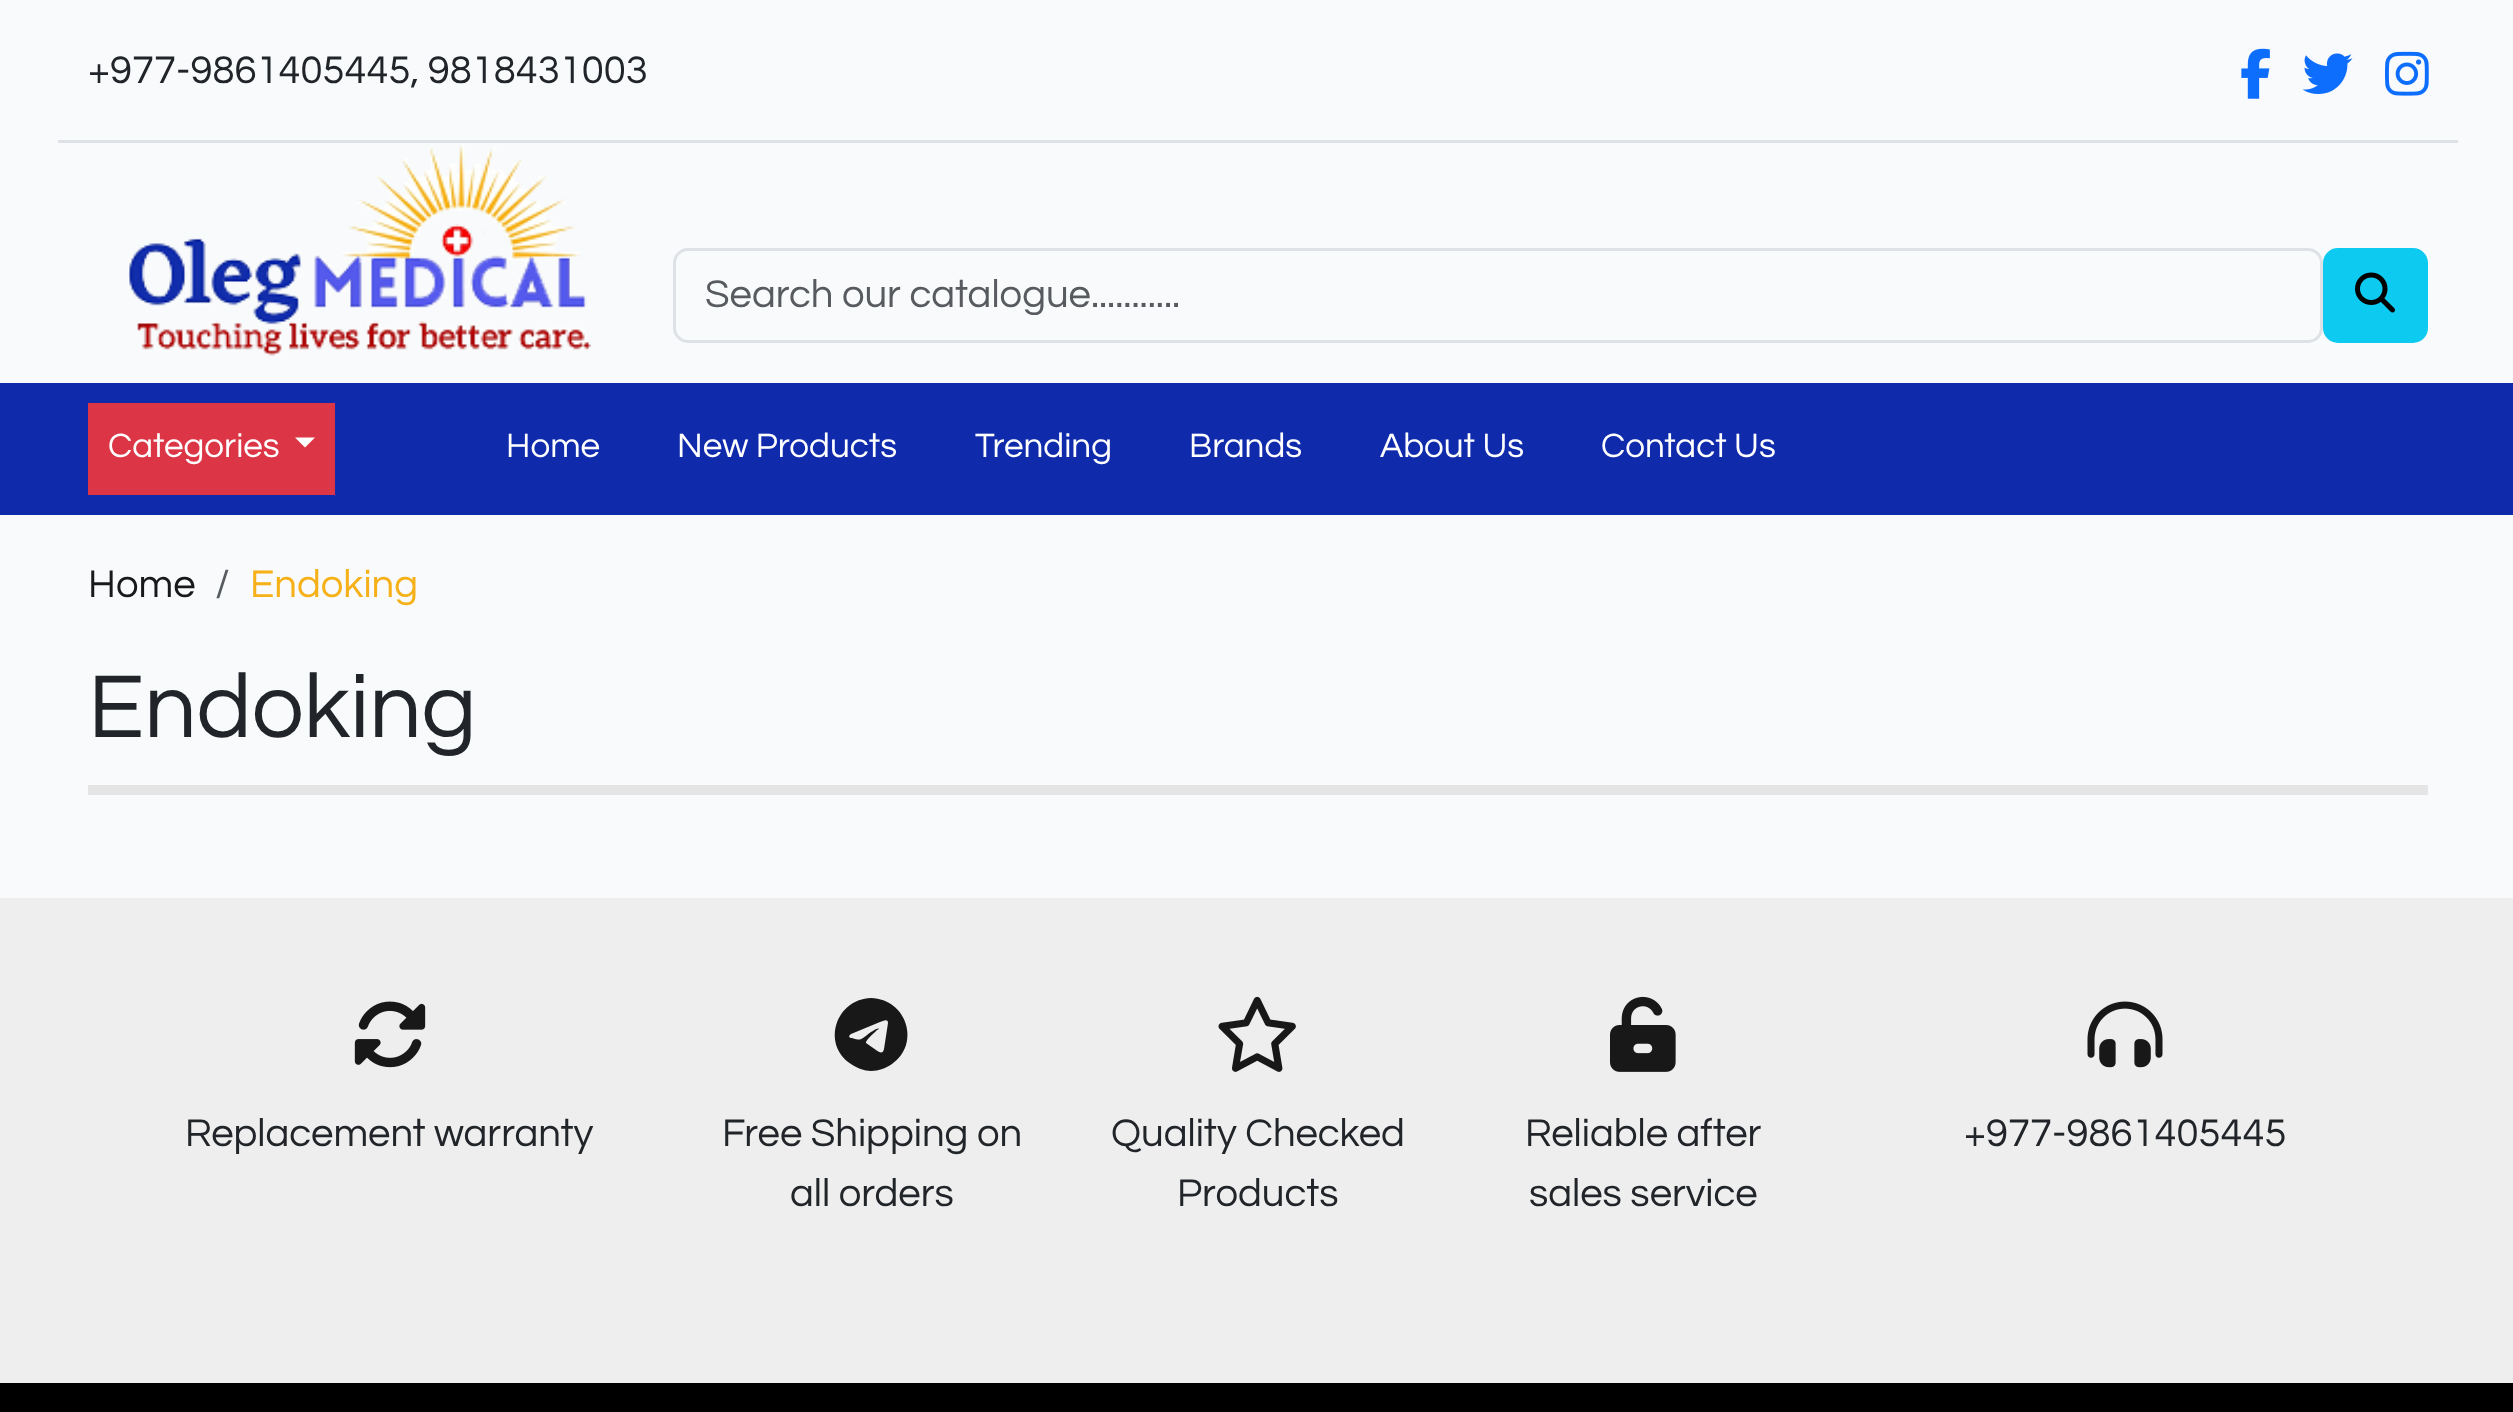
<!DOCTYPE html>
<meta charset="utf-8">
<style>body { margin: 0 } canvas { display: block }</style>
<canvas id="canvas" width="2513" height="1412"></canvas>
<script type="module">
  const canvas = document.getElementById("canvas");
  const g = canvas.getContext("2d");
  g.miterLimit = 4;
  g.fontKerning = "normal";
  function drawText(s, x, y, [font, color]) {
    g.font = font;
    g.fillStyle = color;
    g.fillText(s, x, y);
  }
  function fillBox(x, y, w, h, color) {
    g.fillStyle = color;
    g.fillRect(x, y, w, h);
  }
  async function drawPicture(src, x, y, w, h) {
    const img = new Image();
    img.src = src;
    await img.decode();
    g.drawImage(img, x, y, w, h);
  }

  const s1 = ["40px Questrial", "#212529"];
  const s2 = ["40px Questrial", "#575A5E"];
  const s3 = ["35px Questrial", "#FFFFFF"];
  const s4 = ["40px Questrial", "#191919"];
  const s5 = ["40px Questrial", "#F6B018"];
  const s6 = ["92.5px Questrial", "#212529"];

  fillBox(0, 0, 2513, 1412, "#F8FAFC");
  fillBox(58, 140, 2400, 3, "#DEE2E6");
  drawText("+977-9861405445, 9818431003", 88, 83, s1);
  await drawPicture("pic1.png", 2241, 48, 29, 51);
  await drawPicture("pic2.png", 2302, 53, 51, 42);
  await drawPicture("pic3.png", 2385, 51, 44, 45);
  await drawPicture("pic4.png", 128, 144, 463, 212);
  g.beginPath();
  g.roundRect(674.5, 249.5, 1647, 92, 13.5);
  g.strokeStyle = "#DEE2E6";
  g.lineWidth = 3;
  g.stroke();
  g.save();
  g.beginPath();
  g.rect(705, 275, 1585, 40);
  g.clip();
  drawText("Search our catalogue...........", 705, 307, s2);
  g.restore();
  g.fillStyle = "#0DCAF0";
  g.beginPath();
  g.roundRect(2324.5, 249.5, 102, 92, 13.5);
  g.fill();
  g.strokeStyle = "#0DCAF0";
  g.stroke();
  await drawPicture("pic5.png", 2355, 272, 40, 41);
  fillBox(0, 383, 2513, 132, "#0F2BAC");
  fillBox(88, 403, 247, 92, "#DC3545");
  drawText("Categories", 108, 457, s3);
  g.beginPath();
  g.moveTo(295, 437.5);
  g.lineTo(315, 437.5);
  g.lineTo(305, 447.5);
  g.closePath();
  g.fill();
  drawText("Home", 506, 457, s3);
  drawText("New Products", 677, 457, s3);
  drawText("Trending", 975, 457, s3);
  drawText("Brands", 1189, 457, s3);
  drawText("About Us", 1380, 457, s3);
  drawText("Contact Us", 1601, 457, s3);
  drawText("Home", 88, 597, s4);
  drawText("/", 215, 597, s2);
  drawText("Endoking", 250, 597, s5);
  fillBox(88, 785, 2340, 10, "#E5E5E5");
  drawText("Endoking", 88, 737, s6);
  fillBox(0, 898, 2513, 485, "#EEEEEE");
  await drawPicture("pic6.png", 354, 1001, 72, 67);
  drawText("Replacement warranty", 185, 1146, s1);
  g.fillStyle = "#181818";
  g.beginPath();
  g.moveTo(871, 998);
  g.bezierCurveTo(836, 999, 821, 1044, 851, 1064);
  g.bezierCurveTo(857, 1068, 864, 1071, 871, 1071);
  g.bezierCurveTo(879, 1071, 886, 1068, 892, 1064);
  g.bezierCurveTo(921, 1044, 907, 999, 871, 998);
  g.closePath();
  g.moveTo(888, 1023);
  g.lineTo(884, 1049);
  g.bezierCurveTo(883, 1054, 880, 1053, 876, 1050);
  g.lineTo(866, 1043);
  g.bezierCurveTo(865, 1041, 873, 1034, 877, 1030);
  g.lineTo(879, 1029);
  g.bezierCurveTo(878, 1027, 872, 1032, 871, 1032);
  g.bezierCurveTo(860, 1040, 862, 1041, 852, 1038);
  g.bezierCurveTo(849, 1038, 848, 1036, 851, 1034);
  g.lineTo(880, 1022);
  g.bezierCurveTo(883, 1021, 888, 1018, 888, 1023);
  g.closePath();
  g.fill();
  drawText("Free Shipping on", 722, 1146, s1);
  drawText("all orders", 790, 1206, s1);
  await drawPicture("pic7.png", 1218, 996, 78, 76);
  drawText("Quality Checked", 1111, 1146, s1);
  drawText("Products", 1177, 1206, s1);
  await drawPicture("pic8.png", 1610, 996, 66, 76);
  drawText("Reliable after", 1525, 1146, s1);
  drawText("sales service", 1529, 1206, s1);
  await drawPicture("pic9.png", 2087, 1001, 76, 67);
  drawText("+977-9861405445", 1964, 1146, s1);
  fillBox(0, 1383, 2513, 29, "#000000");
</script>
